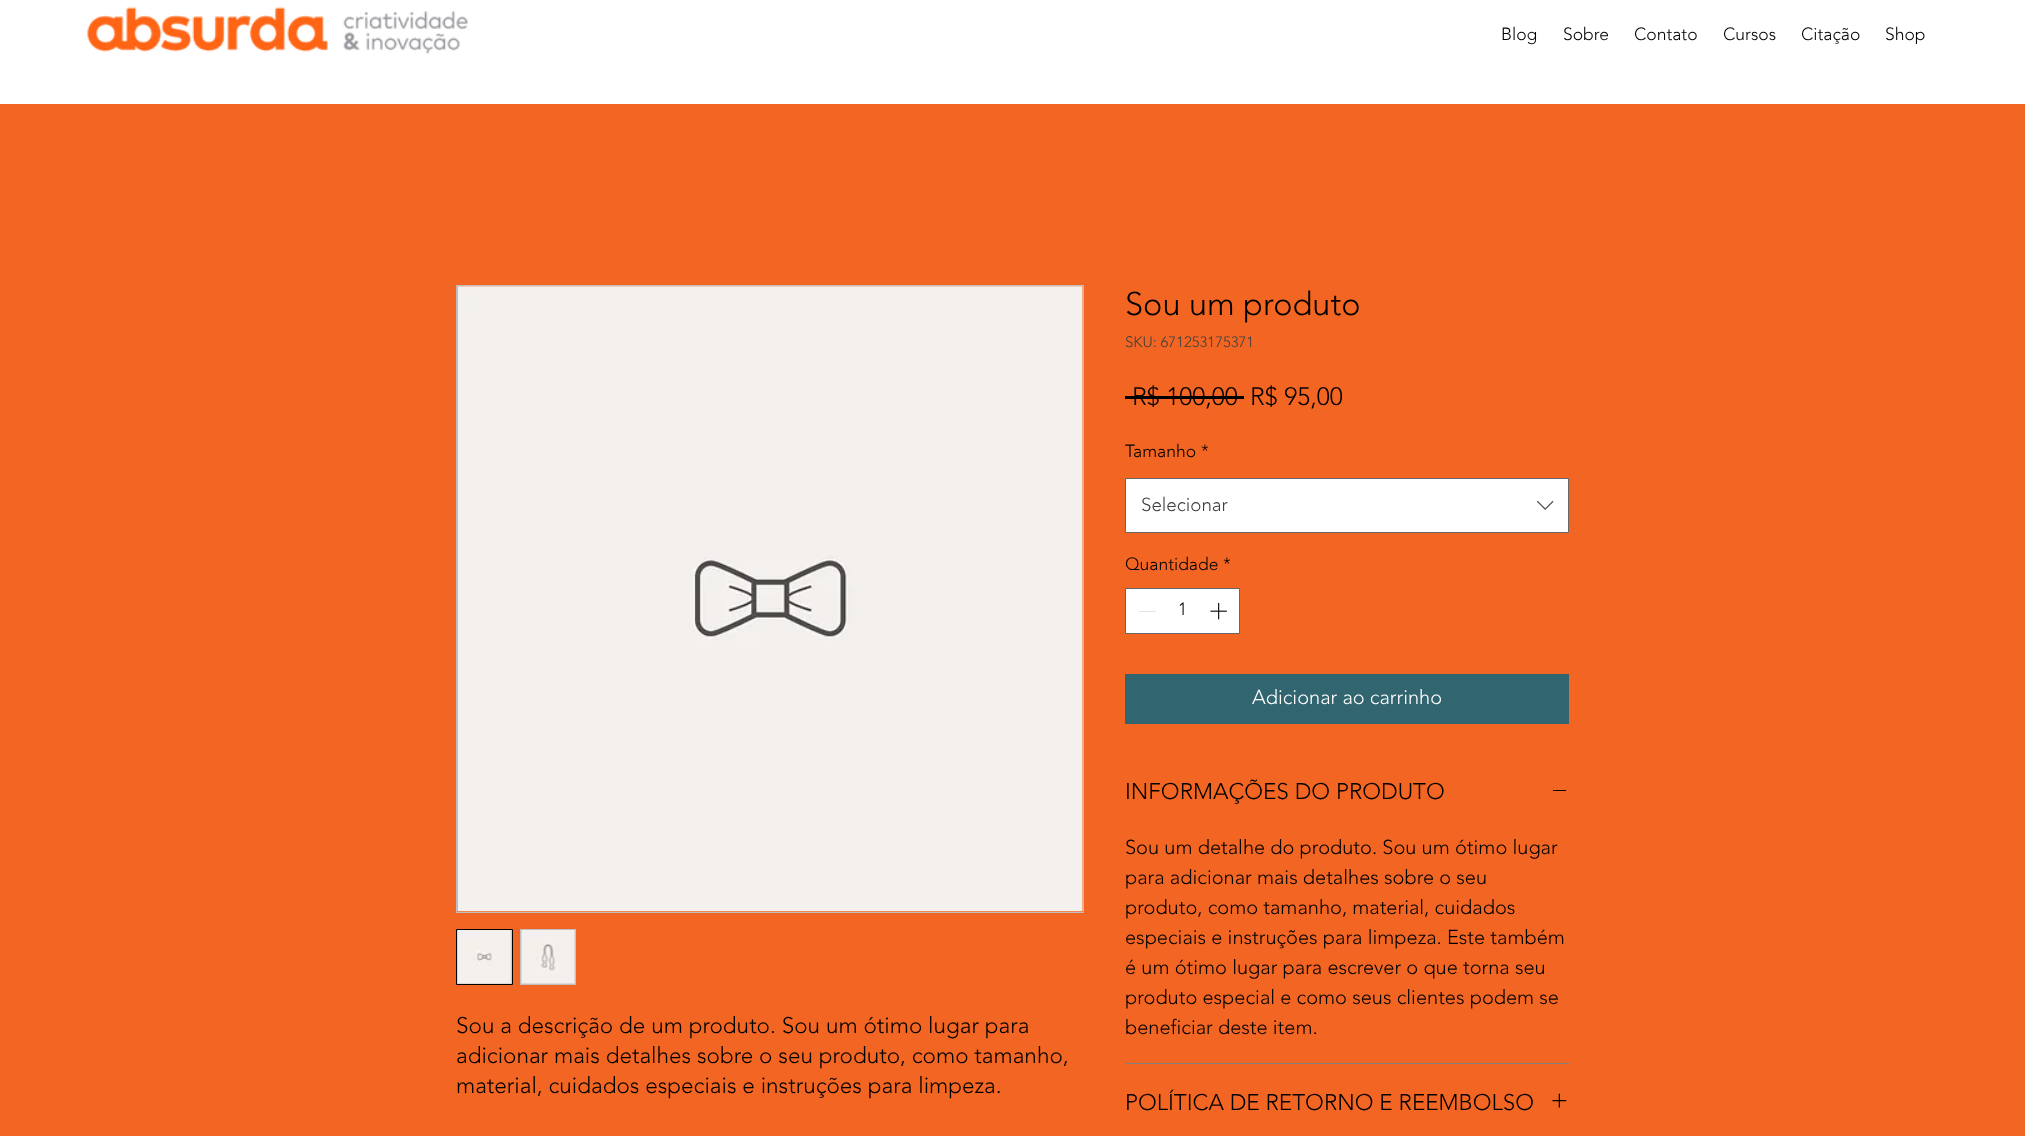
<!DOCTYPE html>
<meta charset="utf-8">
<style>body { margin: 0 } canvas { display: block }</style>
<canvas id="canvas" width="2025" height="1136"></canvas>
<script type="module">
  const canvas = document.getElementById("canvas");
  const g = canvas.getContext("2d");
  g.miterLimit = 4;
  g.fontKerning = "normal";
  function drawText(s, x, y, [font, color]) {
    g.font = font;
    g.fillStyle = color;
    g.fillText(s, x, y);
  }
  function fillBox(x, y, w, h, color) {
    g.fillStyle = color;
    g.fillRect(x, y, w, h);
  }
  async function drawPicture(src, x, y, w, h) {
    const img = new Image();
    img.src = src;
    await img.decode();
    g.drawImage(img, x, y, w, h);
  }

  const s1 = ["300 17.5px 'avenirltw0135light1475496'", "#000000"];
  const s2 = ["300 22.5px 'avenirltw0135light1475496'", "#000000"];
  const s3 = ["300 32.5px 'avenirltw0135light1475496'", "#000000"];
  const s4 = ["300 15px 'avenirltw0135light1475496'", "#404040"];
  const s5 = ["300 25px 'avenirltw0135light1475496'", "#000000"];
  const s6 = ["300 18.75px 'avenirltw0135light1475496'", "#404040"];
  const s7 = ["300 20px 'avenirltw0135light1475496'", "#FFFFFF"];
  const s8 = ["300 20px 'avenirltw0135light1475496'", "#000000"];

  fillBox(0, 0, 2025, 1136, "#F26522");
  fillBox(0, 0, 2025, 104, "#FFFFFF");
  await drawPicture("pic1.png", 87, 7, 381, 47);
  drawText("Blog", 1501, 40, s1);
  drawText("Sobre", 1563, 40, s1);
  drawText("Contato", 1634, 40, s1);
  drawText("Cursos", 1723, 40, s1);
  drawText("Citação", 1801, 40, s1);
  drawText("Shop", 1885, 40, s1);
  g.strokeStyle = "#BFBFBF";
  g.strokeRect(456.5, 285.5, 627, 627);
  await drawPicture("pic2.png", 457, 286, 626, 626);
  g.fillStyle = "#BFBFBF";
  g.beginPath();
  g.rect(456.5, 929.5, 56, 55);
  g.fill();
  g.strokeStyle = "#000000";
  g.stroke();
  await drawPicture("pic3.png", 457, 930, 55, 54);
  fillBox(520, 929, 56, 56, "#BFBFBF");
  await drawPicture("pic4.png", 521, 930, 55, 54);
  drawText("Sou a descrição de um produto. Sou um ótimo lugar para", 456, 1033, s2);
  drawText("adicionar mais detalhes sobre o seu produto, como tamanho,", 456, 1063, s2);
  drawText("material, cuidados especiais e instruções para limpeza.", 456, 1093, s2);
  drawText("Sou um produto", 1125, 315, s3);
  drawText("SKU: 671253175371", 1125, 347, s4);
  drawText("R$ 100,00", 1132, 405, s5);
  fillBox(1125, 396, 119, 3, "#000000");
  drawText("R$ 95,00", 1250, 405, s5);
  drawText("Tamanho", 1125, 457, s1);
  drawText("*", 1201, 457, s1);
  g.fillStyle = "#FFFFFF";
  g.beginPath();
  g.rect(1125.5, 478.5, 443, 54);
  g.fill();
  g.strokeStyle = "#666666";
  g.stroke();
  drawText("Selecionar", 1141, 511, s6);
  await drawPicture("pic5.png", 1537, 500, 17, 10);
  drawText("Quantidade", 1125, 570, s1);
  drawText("*", 1223, 570, s1);
  g.fillStyle = "#FFFFFF";
  g.beginPath();
  g.rect(1125.5, 588.5, 114, 45);
  g.fill();
  g.stroke();
  fillBox(1139, 611, 17, 1, "#E3E3E3");
  drawText("1", 1178, 615, s1);
  await drawPicture("pic6.png", 1210, 602, 17, 18);
  fillBox(1125, 674, 444, 50, "#316570");
  drawText("Adicionar ao carrinho", 1252, 704, s7);
  fillBox(1125, 1063, 444, 1, "#808080");
  drawText("INFORMAÇÕES DO PRODUTO", 1125, 799, s2);
  fillBox(1553, 790, 13, 1, "#000000");
  drawText("Sou um detalhe do produto. Sou um ótimo lugar", 1125, 854, s8);
  drawText("para adicionar mais detalhes sobre o seu", 1125, 884, s8);
  drawText("produto, como tamanho, material, cuidados", 1125, 914, s8);
  drawText("especiais e instruções para limpeza. Este também", 1125, 944, s8);
  drawText("é um ótimo lugar para escrever o que torna seu", 1125, 974, s8);
  drawText("produto especial e como seus clientes podem se", 1125, 1004, s8);
  drawText("beneficiar deste item.", 1125, 1034, s8);
  drawText("POLÍTICA DE RETORNO E REEMBOLSO", 1125, 1110, s2);
  await drawPicture("pic7.png", 1552, 1093, 15, 15);
</script>
